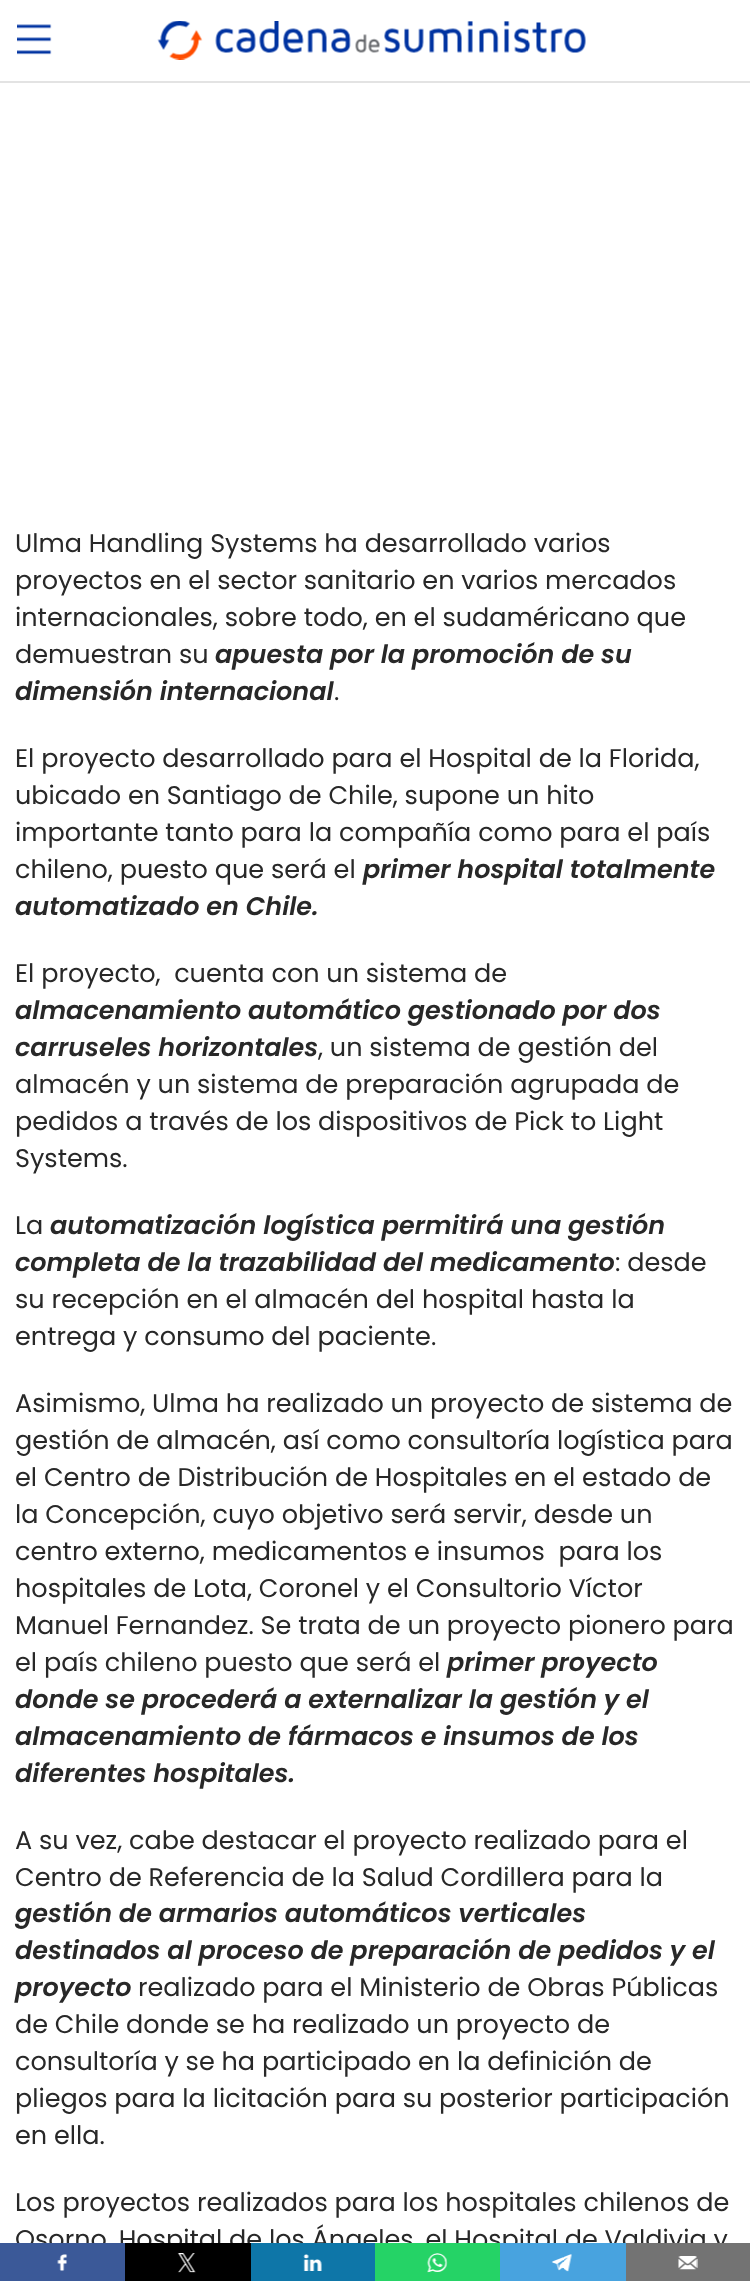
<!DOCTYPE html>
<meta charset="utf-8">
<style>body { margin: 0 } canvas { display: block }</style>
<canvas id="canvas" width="750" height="2281"></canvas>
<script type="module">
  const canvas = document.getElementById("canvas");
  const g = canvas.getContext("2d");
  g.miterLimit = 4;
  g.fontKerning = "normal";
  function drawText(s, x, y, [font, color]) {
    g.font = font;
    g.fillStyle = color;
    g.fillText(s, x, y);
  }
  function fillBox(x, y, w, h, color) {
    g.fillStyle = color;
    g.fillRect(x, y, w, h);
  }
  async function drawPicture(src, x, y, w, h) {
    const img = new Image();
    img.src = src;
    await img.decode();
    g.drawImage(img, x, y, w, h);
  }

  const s1 = ["25.5px Poppins", "#282828"];
  const s2 = ["italic 600 25.5px Poppins", "#282828"];

  fillBox(0, 0, 750, 2281, "#FFFFFF");
  fillBox(0, 81, 750, 2, "#E3E3E3");
  await drawPicture("pic1.png", 157, 21, 429, 39);
  await drawPicture("pic2.png", 17, 24, 35, 31);
  drawText("Ulma Handling Systems ha desarrollado varios", 15, 552, s1);
  drawText("proyectos en el sector sanitario en varios mercados", 15, 589, s1);
  drawText("internacionales, sobre todo, en el sudaméricano que", 15, 626, s1);
  drawText("demuestran su", 15, 663, s1);
  drawText("apuesta por la promoción de su", 215, 663, s2);
  drawText("dimensión internacional", 15, 700, s2);
  drawText(".", 334, 700, s1);
  drawText("El proyecto desarrollado para el Hospital de la Florida,", 15, 767, s1);
  drawText("ubicado en Santiago de Chile, supone un hito", 15, 804, s1);
  drawText("importante tanto para la compañía como para el país", 15, 841, s1);
  drawText("chileno, puesto que será el", 15, 878, s1);
  drawText("primer hospital totalmente", 363, 878, s2);
  drawText("automatizado en Chile.", 15, 915, s2);
  drawText("El proyecto,  cuenta con un sistema de", 15, 982, s1);
  drawText("almacenamiento automático gestionado por dos", 15, 1019, s2);
  drawText("carruseles horizontales", 15, 1056, s2);
  drawText(", un sistema de gestión del", 318, 1056, s1);
  drawText("almacén y un sistema de preparación agrupada de", 15, 1093, s1);
  drawText("pedidos a través de los dispositivos de Pick to Light", 15, 1130, s1);
  drawText("Systems.", 15, 1167, s1);
  drawText("La", 15, 1234, s1);
  drawText("automatización logística permitirá una gestión", 50, 1234, s2);
  drawText("completa de la trazabilidad del medicamento", 15, 1271, s2);
  drawText(": desde", 615, 1271, s1);
  drawText("su recepción en el almacén del hospital hasta la", 15, 1308, s1);
  drawText("entrega y consumo del paciente.", 15, 1345, s1);
  drawText("Asimismo, Ulma ha realizado un proyecto de sistema de", 15, 1412, s1);
  drawText("gestión de almacén, así como consultoría logística para", 15, 1449, s1);
  drawText("el Centro de Distribución de Hospitales en el estado de", 15, 1486, s1);
  drawText("la Concepción, cuyo objetivo será servir, desde un", 15, 1523, s1);
  drawText("centro externo, medicamentos e insumos  para los", 15, 1560, s1);
  drawText("hospitales de Lota, Coronel y el Consultorio Víctor", 15, 1597, s1);
  drawText("Manuel Fernandez. Se trata de un proyecto pionero para", 15, 1634, s1);
  drawText("el país chileno puesto que será el", 15, 1671, s1);
  drawText("primer proyecto", 447, 1671, s2);
  drawText("donde se procederá a externalizar la gestión y el", 15, 1708, s2);
  drawText("almacenamiento de fármacos e insumos de los", 15, 1745, s2);
  drawText("diferentes hospitales.", 15, 1782, s2);
  drawText("A su vez, cabe destacar el proyecto realizado para el", 15, 1849, s1);
  drawText("Centro de Referencia de la Salud Cordillera para la", 15, 1886, s1);
  drawText("gestión de armarios automáticos verticales", 15, 1922, s2);
  drawText("destinados al proceso de preparación de pedidos y el", 15, 1959, s2);
  drawText("proyecto", 15, 1996, s2);
  drawText("realizado para el Ministerio de Obras Públicas", 138, 1996, s1);
  drawText("de Chile donde se ha realizado un proyecto de", 15, 2033, s1);
  drawText("consultoría y se ha participado en la definición de", 15, 2070, s1);
  drawText("pliegos para la licitación para su posterior participación", 15, 2107, s1);
  drawText("en ella.", 15, 2144, s1);
  drawText("Los proyectos realizados para los hospitales chilenos de", 15, 2211, s1);
  drawText("Osorno, Hospital de los Ángeles, el Hospital de Valdivia y", 15, 2248, s1);
  fillBox(0, 2243, 125, 38, "#3B5998");
  await drawPicture("pic3.png", 57, 2254, 11, 17);
  fillBox(125, 2243, 126, 38, "#000000");
  await drawPicture("pic4.png", 177, 2253, 19, 20);
  fillBox(251, 2243, 124, 38, "#0E76A8");
  await drawPicture("pic5.png", 303, 2254, 19, 17);
  fillBox(375, 2243, 125, 38, "#25D366");
  await drawPicture("pic6.png", 427, 2253, 21, 20);
  fillBox(500, 2243, 126, 38, "#48A3DF");
  await drawPicture("pic7.png", 551, 2254, 21, 18);
  fillBox(626, 2243, 124, 38, "#737373");
  await drawPicture("pic8.png", 678, 2256, 20, 14);
</script>
